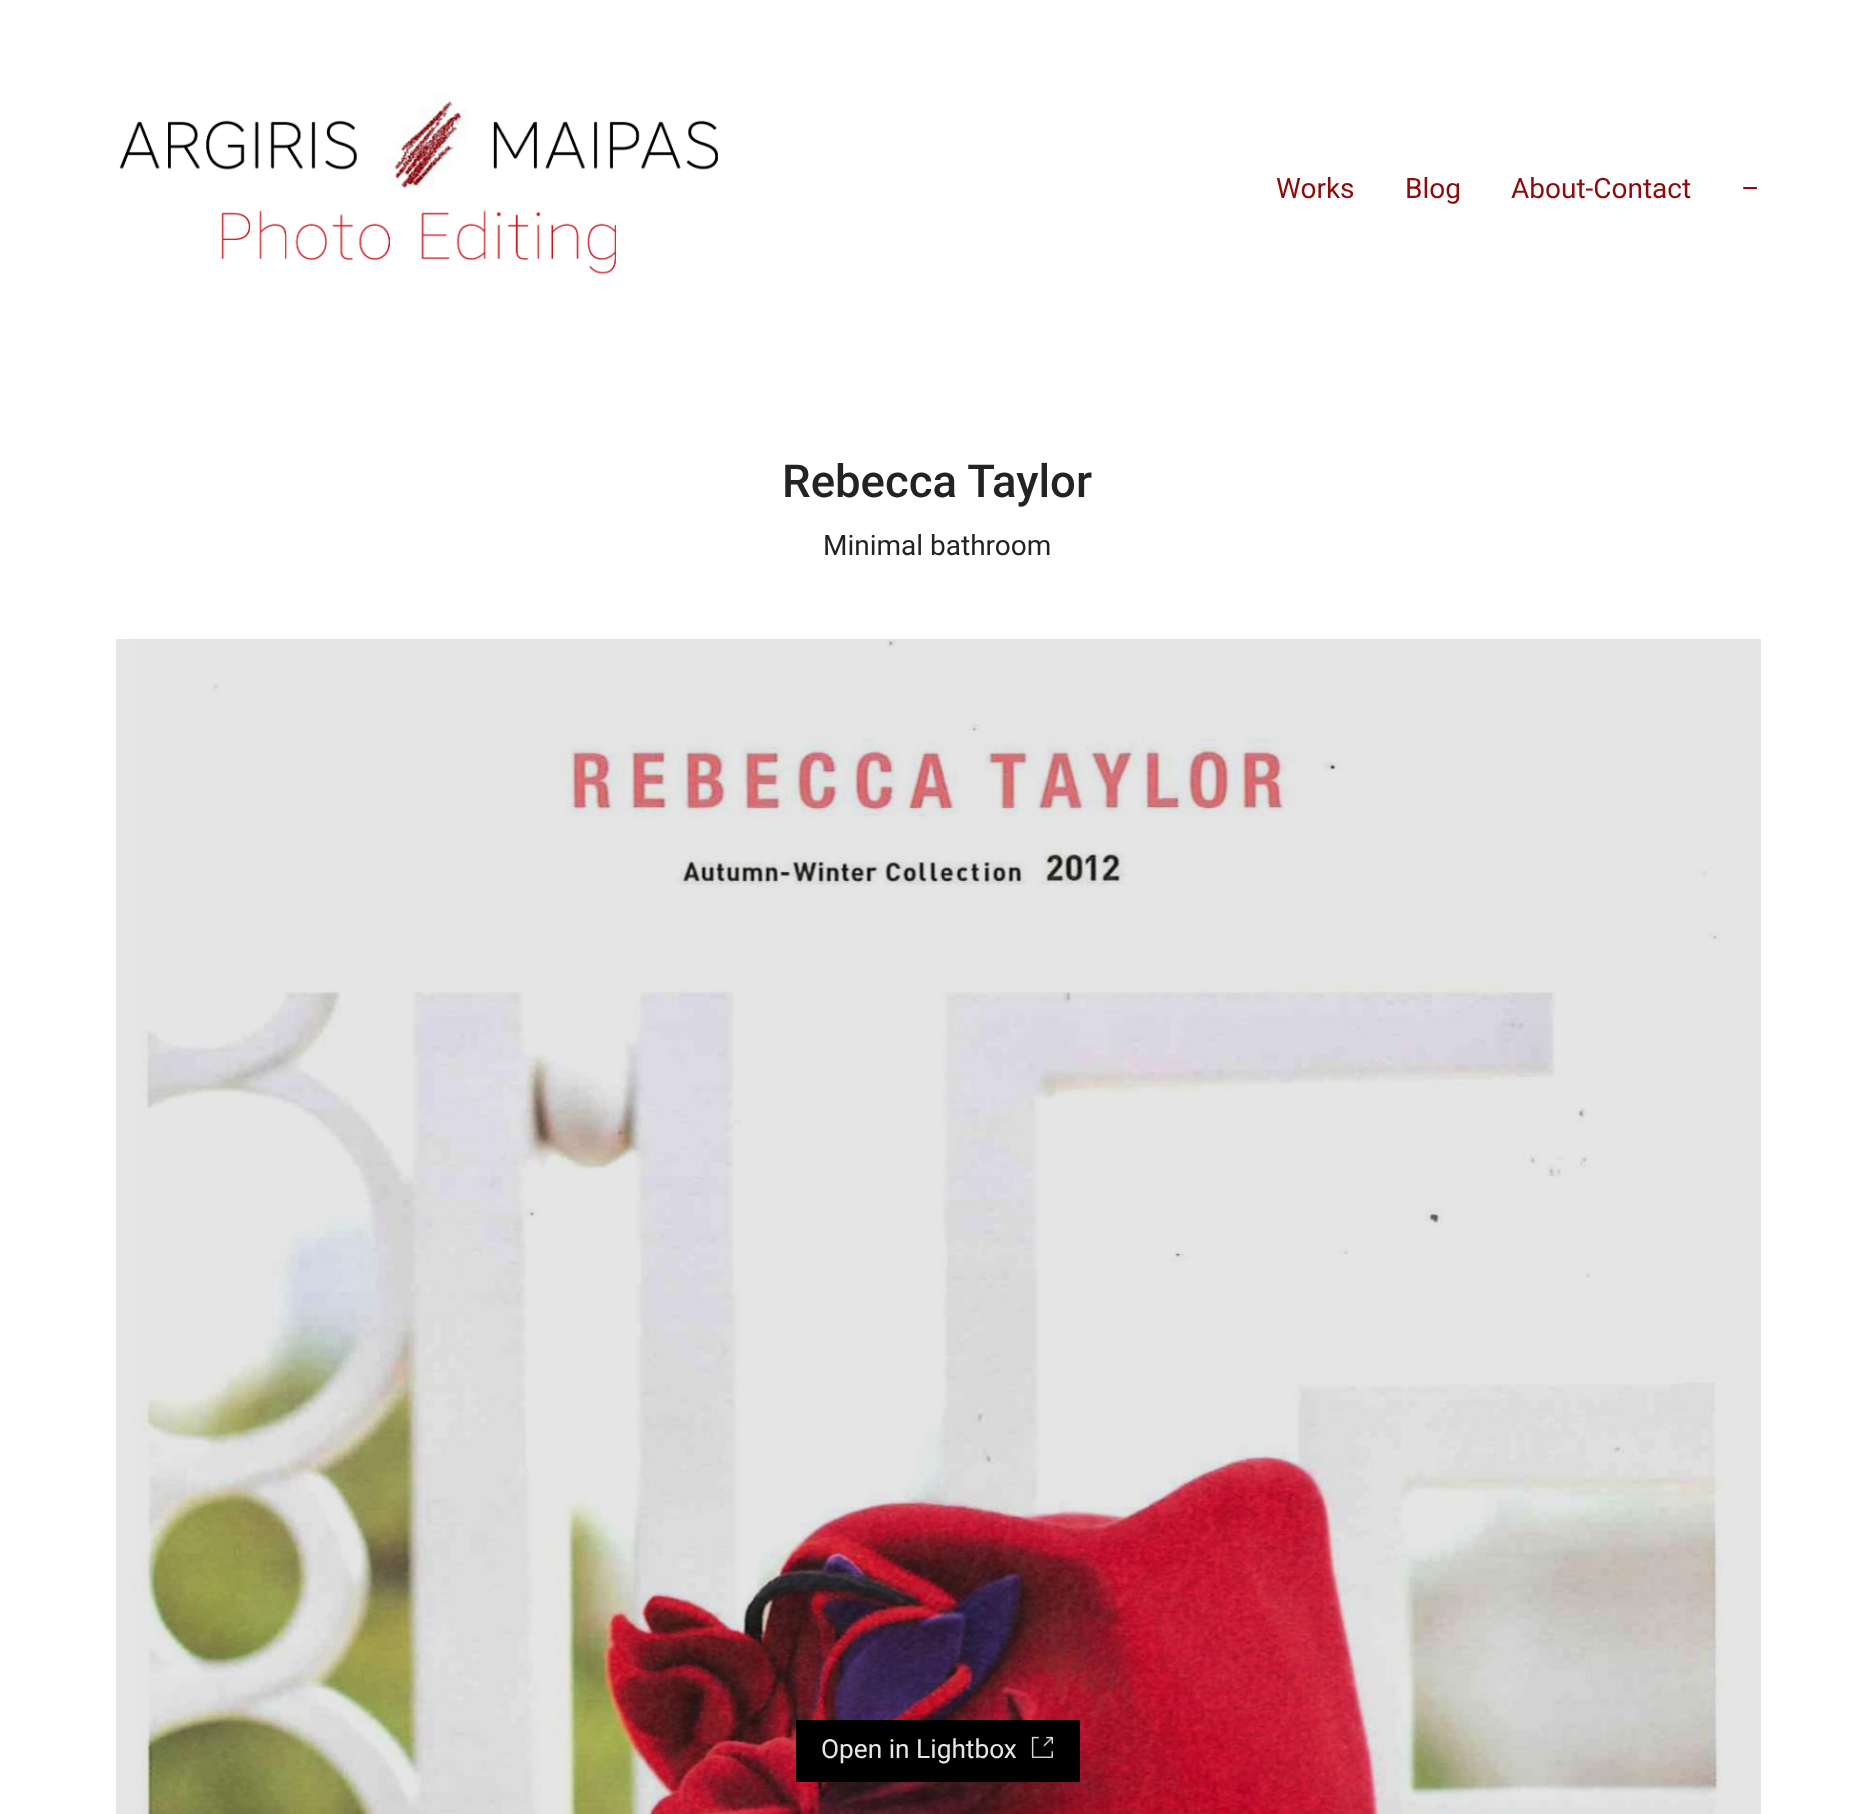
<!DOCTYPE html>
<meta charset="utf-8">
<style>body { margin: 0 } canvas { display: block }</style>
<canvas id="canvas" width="1874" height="1814"></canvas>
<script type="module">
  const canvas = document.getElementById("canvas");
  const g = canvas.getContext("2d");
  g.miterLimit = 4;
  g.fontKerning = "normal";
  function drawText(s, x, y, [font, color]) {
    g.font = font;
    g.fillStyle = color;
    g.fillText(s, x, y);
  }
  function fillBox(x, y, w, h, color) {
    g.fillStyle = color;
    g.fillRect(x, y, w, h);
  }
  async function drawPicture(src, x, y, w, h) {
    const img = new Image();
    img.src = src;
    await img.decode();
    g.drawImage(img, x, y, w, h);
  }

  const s1 = ["28px Roboto", "#8E0B0B"];
  const s2 = ["500 45.5px Roboto", "#242321"];
  const s3 = ["28px Roboto", "#242321"];
  const s4 = ["26.25px Roboto", "#E6E6E6"];

  fillBox(0, 0, 1874, 1814, "#FFFFFF");
  fillBox(116, 639, 1645, 1175, "#E6E6E6");
  await drawPicture("pic1.png", 119, 93, 600, 182);
  drawText("Works", 1276, 198, s1);
  drawText("Blog", 1405, 198, s1);
  drawText("About-Contact", 1511, 198, s1);
  drawText("–", 1741, 198, s1);
  drawText("Rebecca Taylor", 782, 497, s2);
  drawText("Minimal bathroom", 823, 555, s3);
  await drawPicture("pic2.png", 133, 639, 1626, 1175);
  fillBox(796, 1720, 284, 62, "#000000");
  drawText("Open in Lightbox", 821, 1758, s4);
  await drawPicture("pic3.png", 1031, 1736, 22, 22);
</script>
